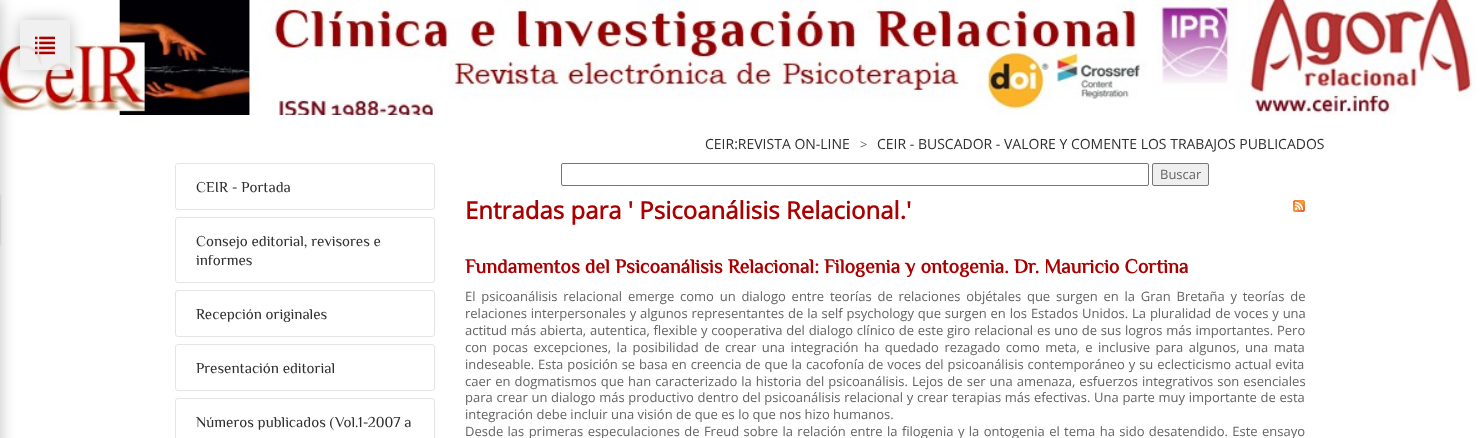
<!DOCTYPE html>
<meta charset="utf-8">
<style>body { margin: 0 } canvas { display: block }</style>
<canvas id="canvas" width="1480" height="438"></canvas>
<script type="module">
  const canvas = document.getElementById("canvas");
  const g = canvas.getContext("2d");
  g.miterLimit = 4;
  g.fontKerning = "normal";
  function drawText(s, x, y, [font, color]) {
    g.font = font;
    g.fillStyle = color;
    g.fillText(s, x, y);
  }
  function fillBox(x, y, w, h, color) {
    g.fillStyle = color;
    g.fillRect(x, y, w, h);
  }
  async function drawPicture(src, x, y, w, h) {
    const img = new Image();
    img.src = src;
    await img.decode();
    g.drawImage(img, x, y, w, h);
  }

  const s1 = ["14px Open Sans", "#2E2E2E"];
  const s2 = ["13px Open Sans", "#636363"];
  const s3 = ["15px Philosopher", "#2E2E2E"];
  const s4 = ["bold 24px Open Sans", "#AA0000"];
  const s5 = ["bold 20px Philosopher", "#AA0000"];

  fillBox(0, 0, 1480, 438, "#FFFFFF");
  await drawPicture("pic2.png", 0, 0, 1476, 115);
  g.save();
  g.beginPath();
  g.moveTo(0, 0);
  g.lineTo(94, 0);
  g.lineTo(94, 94);
  g.lineTo(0, 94);
  g.closePath();
  g.moveTo(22, 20);
  g.lineTo(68, 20);
  g.bezierCurveTo(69, 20, 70, 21, 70, 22);
  g.lineTo(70, 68);
  g.bezierCurveTo(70, 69, 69, 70, 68, 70);
  g.lineTo(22, 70);
  g.bezierCurveTo(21, 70, 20, 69, 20, 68);
  g.lineTo(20, 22);
  g.bezierCurveTo(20, 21, 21, 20, 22, 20);
  g.closePath();
  g.clip("evenodd");
  g.fillStyle = "rgba(0, 0, 0, 0.25)";
  g.filter = "blur(7.5px)";
  g.beginPath();
  g.roundRect(20, 20, 50, 50, 2);
  g.fill();
  g.filter = "none";
  g.restore();
  fillBox(20, 20, 50, 50, "rgba(238, 238, 238, 0.9)");
  await drawPicture("pic1.png", 35, 36, 20, 19);
  g.fillStyle = "rgba(0, 0, 0, 0.25)";
  g.filter = "blur(7.5px)";
  g.beginPath();
  g.rect(-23, 0, 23, 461);
  g.fill();
  g.filter = "none";
  g.fillStyle = "rgba(0, 0, 0, 0.2)";
  g.filter = "blur(1px)";
  g.beginPath();
  g.rect(-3, 195, 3, 50);
  g.fill();
  g.filter = "none";
  drawText("CEIR:REVISTA ON-LINE", 705, 149, s1);
  drawText(">", 860, 149, s2);
  drawText("CEIR - BUSCADOR - VALORE Y COMENTE LOS TRABAJOS PUBLICADOS", 877, 149, s1);
  g.beginPath();
  g.roundRect(175.5, 163.5, 259, 46, 2.5);
  g.strokeStyle = "#E5E5E5";
  g.stroke();
  drawText("CEIR - Portada", 196, 192, s3);
  g.beginPath();
  g.roundRect(175.5, 217.5, 259, 65, 2.5);
  g.stroke();
  drawText("Consejo editorial, revisores e", 196, 246, s3);
  drawText("informes", 196, 265, s3);
  g.beginPath();
  g.roundRect(175.5, 290.5, 259, 46, 2.5);
  g.stroke();
  drawText("Recepción originales", 196, 319, s3);
  g.beginPath();
  g.roundRect(175.5, 344.5, 259, 46, 2.5);
  g.stroke();
  drawText("Presentación editorial", 196, 373, s3);
  g.beginPath();
  g.roundRect(175.5, 398.5, 259, 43, 2.5);
  g.stroke();
  drawText("Números publicados (Vol.1-2007 a", 196, 427, s3);
  g.beginPath();
  g.roundRect(561.5, 163.5, 587, 22, 1.5);
  g.strokeStyle = "#767676";
  g.stroke();
  g.fillStyle = "#EFEFEF";
  g.beginPath();
  g.roundRect(1152.5, 163.5, 56, 22, 1.5);
  g.fill();
  g.stroke();
  drawText("Buscar", 1160, 179, s2);
  drawText("Entradas para ' Psicoanálisis Relacional.'", 465, 219, s4);
  await drawPicture("pic3.png", 1293, 200, 12, 12);
  drawText("Fundamentos del Psicoanálisis Relacional: Filogenia y ontogenia. Dr. Mauricio Cortina", 465, 273, s5);
  g.wordSpacing = "2.4px";
  drawText("El psicoanálisis relacional emerge como un dialogo entre teorías de relaciones objétales que surgen en la Gran Bretaña y teorías de", 465, 301, s2);
  g.wordSpacing = "0.5px";
  drawText("relaciones interpersonales y algunos representantes de la self psychology que surgen en los Estados Unidos. La pluralidad de voces y una", 465, 318, s2);
  g.wordSpacing = "0.4px";
  drawText("actitud más abierta, autentica, flexible y cooperativa del dialogo clínico de este giro relacional es uno de sus logros más importantes. Pero", 465, 335, s2);
  g.wordSpacing = "2.1px";
  drawText("con pocas excepciones, la posibilidad de crear una integración ha quedado rezagado como meta, e inclusive para algunos, una mata", 465, 352, s2);
  g.wordSpacing = "0.5px";
  drawText("indeseable. Esta posición se basa en creencia de que la cacofonía de voces del psicoanálisis contemporáneo y su eclecticismo actual evita", 465, 369, s2);
  g.wordSpacing = "0.7px";
  drawText("caer en dogmatismos que han caracterizado la historia del psicoanálisis. Lejos de ser una amenaza, esfuerzos integrativos son esenciales", 465, 386, s2);
  g.wordSpacing = "0.3px";
  drawText("para crear un dialogo más productivo dentro del psicoanálisis relacional y crear terapias más efectivas. Una parte muy importante de esta", 465, 402, s2);
  g.wordSpacing = "0px";
  drawText("integración debe incluir una visión de que es lo que nos hizo humanos.", 465, 419, s2);
  g.wordSpacing = "1px";
  drawText("Desde las primeras especulaciones de Freud sobre la relación entre la filogenia y la ontogenia el tema ha sido desatendido. Este ensayo", 465, 436, s2);
</script>
